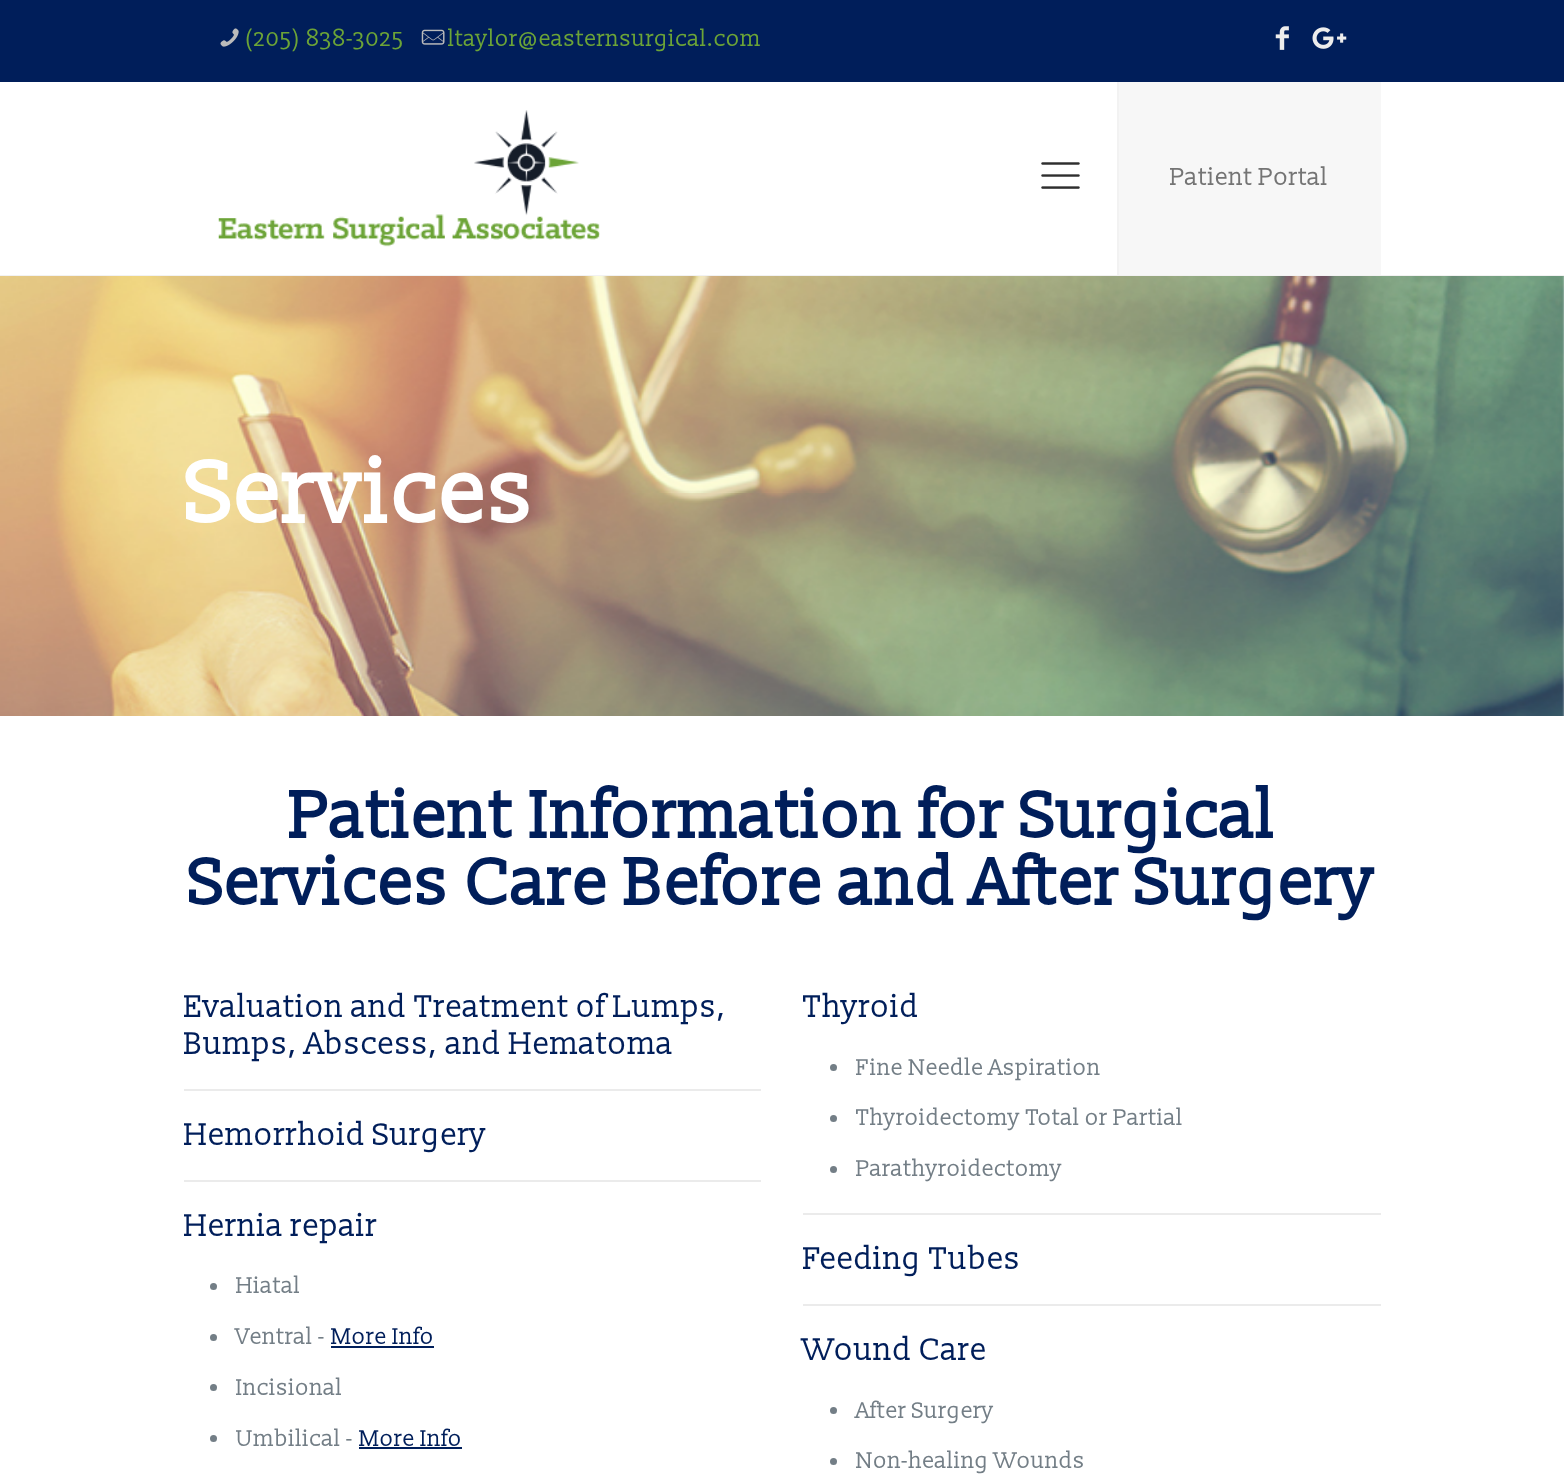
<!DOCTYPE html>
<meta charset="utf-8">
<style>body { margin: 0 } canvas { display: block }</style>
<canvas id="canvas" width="1564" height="1484"></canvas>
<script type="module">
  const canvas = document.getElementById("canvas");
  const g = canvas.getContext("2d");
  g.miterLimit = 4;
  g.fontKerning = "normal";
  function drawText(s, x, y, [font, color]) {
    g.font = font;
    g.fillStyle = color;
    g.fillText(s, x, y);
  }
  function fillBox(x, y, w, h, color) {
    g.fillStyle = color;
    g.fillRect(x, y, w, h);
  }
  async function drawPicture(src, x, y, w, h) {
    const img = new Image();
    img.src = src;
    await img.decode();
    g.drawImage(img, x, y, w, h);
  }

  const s1 = ["22.75px 'Slabo 13px'", "#6CA437"];
  const s2 = ["24.5px 'Slabo 13px'", "#747474"];
  const s3 = ["bold 89px 'Slabo 13px'", "#FFFFFF"];
  const s4 = ["bold 66.5px 'Slabo 13px'", "#001E5A"];
  const s5 = ["31.5px 'Slabo 13px'", "#001E5A"];
  const s6 = ["22.75px 'Slabo 13px'", "#737E86"];
  const s7 = ["22.75px 'Slabo 13px'", "#001E5A"];

  fillBox(0, 0, 1564, 1484, "#FFFFFF");
  fillBox(0, 0, 1564, 82, "#001E5A");
  await drawPicture("pic1.png", 220, 28, 19, 19);
  drawText("(205) 838-3025", 245, 46, s1);
  await drawPicture("pic2.png", 421, 29, 24, 16);
  drawText("ltaylor@easternsurgical.com", 448, 46, s1);
  await drawPicture("pic3.png", 1275, 26, 14, 24);
  await drawPicture("pic4.png", 1312, 27, 35, 22);
  fillBox(0, 275, 1564, 2, "#F2F2F2");
  await drawPicture("pic5.png", 218, 110, 382, 137);
  await drawPicture("pic6.png", 1041, 162, 39, 27);
  fillBox(1119, 82, 262, 193, "#F7F7F7");
  fillBox(1117, 82, 2, 193, "#F2F2F2");
  drawText("Patient Portal", 1170, 185, s2);
  await drawPicture("pic7.png", 0, 276, 1564, 440);
  drawText("Services", 186, 523, s3);
  drawText("Patient Information for Surgical", 289, 838, s4);
  drawText("Services Care Before and After Surgery", 189, 905, s4);
  drawText("Evaluation and Treatment of Lumps,", 184, 1017, s5);
  drawText("Bumps, Abscess, and Hematoma", 184, 1054, s5);
  fillBox(184, 1089, 577, 2, "#EBEBEB");
  drawText("Hemorrhoid Surgery", 184, 1145, s5);
  fillBox(184, 1180, 577, 2, "#EBEBEB");
  drawText("Hernia repair", 184, 1236, s5);
  g.fillStyle = "#737E86";
  g.beginPath();
  g.arc(213.5, 1286.5, 3.5, 0, Math.PI * 2);
  g.fill();
  drawText("Hiatal", 236, 1293, s6);
  g.beginPath();
  g.arc(213.5, 1337.5, 3.5, 0, Math.PI * 2);
  g.fill();
  drawText("Ventral -", 236, 1344, s6);
  drawText("More Info", 331, 1344, s7);
  fillBox(331, 1346, 103, 2, "#001E5A");
  g.fillStyle = "#737E86";
  g.beginPath();
  g.arc(213.5, 1387.5, 3.5, 0, Math.PI * 2);
  g.fill();
  drawText("Incisional", 236, 1395, s6);
  g.beginPath();
  g.arc(213.5, 1438.5, 3.5, 0, Math.PI * 2);
  g.fill();
  drawText("Umbilical -", 236, 1446, s6);
  drawText("More Info", 359, 1446, s7);
  fillBox(359, 1447, 103, 2, "#001E5A");
  drawText("Thyroid", 803, 1017, s5);
  g.fillStyle = "#737E86";
  g.beginPath();
  g.arc(833.5, 1067.5, 3.5, 0, Math.PI * 2);
  g.fill();
  drawText("Fine Needle Aspiration", 856, 1075, s6);
  g.beginPath();
  g.arc(833.5, 1118.5, 3.5, 0, Math.PI * 2);
  g.fill();
  drawText("Thyroidectomy Total or Partial", 856, 1125, s6);
  g.beginPath();
  g.arc(833.5, 1169.5, 3.5, 0, Math.PI * 2);
  g.fill();
  drawText("Parathyroidectomy", 856, 1176, s6);
  fillBox(803, 1213, 578, 2, "#EBEBEB");
  drawText("Feeding Tubes", 803, 1269, s5);
  fillBox(803, 1304, 578, 2, "#EBEBEB");
  drawText("Wound Care", 803, 1360, s5);
  g.fillStyle = "#737E86";
  g.beginPath();
  g.arc(833.5, 1410.5, 3.5, 0, Math.PI * 2);
  g.fill();
  drawText("After Surgery", 856, 1418, s6);
  g.beginPath();
  g.arc(833.5, 1461.5, 3.5, 0, Math.PI * 2);
  g.fill();
  drawText("Non-healing Wounds", 856, 1468, s6);
</script>
